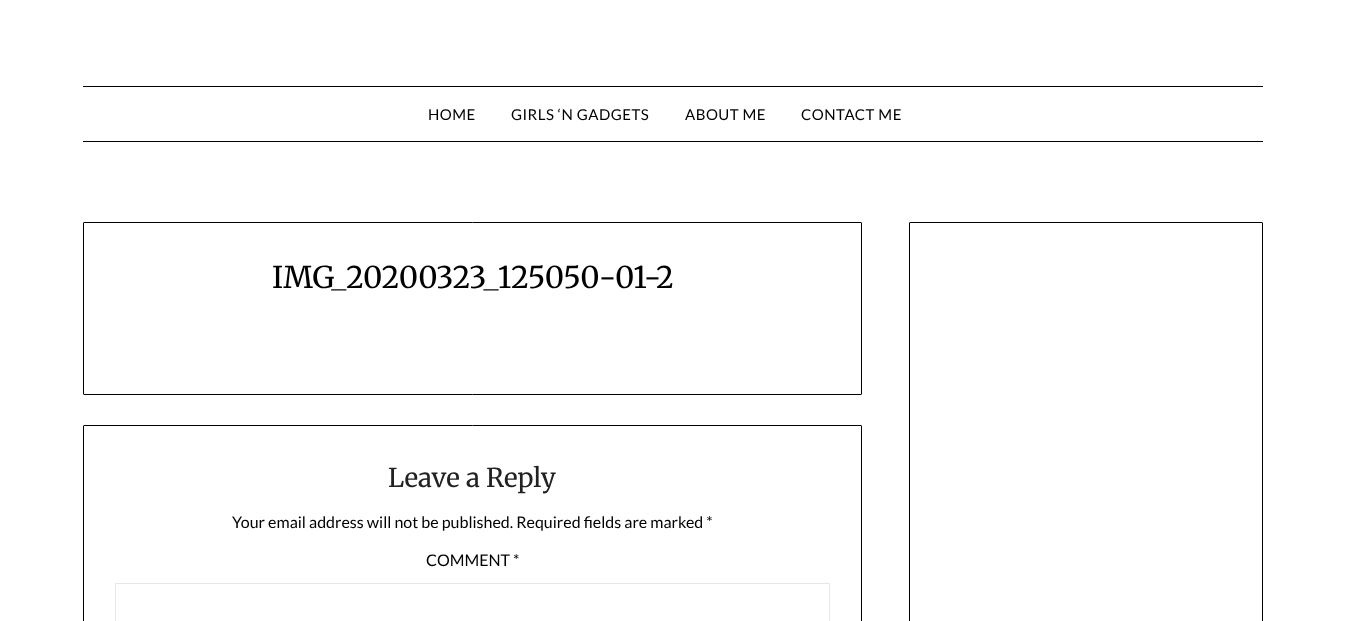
<!DOCTYPE html>
<meta charset="utf-8">
<style>body { margin: 0 } canvas { display: block }</style>
<canvas id="canvas" width="1346" height="621"></canvas>
<script type="module">
  const canvas = document.getElementById("canvas");
  const g = canvas.getContext("2d");
  g.miterLimit = 4;
  g.fontKerning = "normal";
  function drawText(s, x, y, [font, color]) {
    g.font = font;
    g.fillStyle = color;
    g.fillText(s, x, y);
  }
  function fillBox(x, y, w, h, color) {
    g.fillStyle = color;
    g.fillRect(x, y, w, h);
  }

  const s1 = ["15px Lato", "#000000"];
  const s2 = ["30px Merriweather", "#000000"];
  const s3 = ["26px Merriweather", "#222222"];
  const s4 = ["16px Lato", "#000000"];

  fillBox(0, 0, 1346, 621, "#FFFFFF");
  fillBox(83, 86, 1180, 1, "#000000");
  fillBox(83, 141, 1180, 1, "#000000");
  g.letterSpacing = "0.5px";
  drawText("HOME", 428, 120, s1);
  drawText("GIRLS ‘N GADGETS", 511, 120, s1);
  drawText("ABOUT ME", 685, 120, s1);
  drawText("CONTACT ME", 801, 120, s1);
  g.beginPath();
  g.roundRect(83.5, 222.5, 778, 172, 0.5);
  g.strokeStyle = "#000000";
  g.stroke();
  g.letterSpacing = "0px";
  drawText("IMG_20200323_125050-01-2", 272, 288, s2);
  g.beginPath();
  g.roundRect(83.5, 425.5, 778, 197, 0.5);
  g.stroke();
  drawText("Leave a Reply", 388, 487, s3);
  drawText("Your email address will not be published. Required fields are marked *", 232, 528, s4);
  drawText("COMMENT *", 426, 566, s4);
  g.strokeStyle = "#E5E6E9";
  g.strokeRect(115.5, 583.5, 714, 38);
  g.beginPath();
  g.roundRect(909.5, 222.5, 353, 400, 0.5);
  g.strokeStyle = "#000000";
  g.stroke();
</script>
